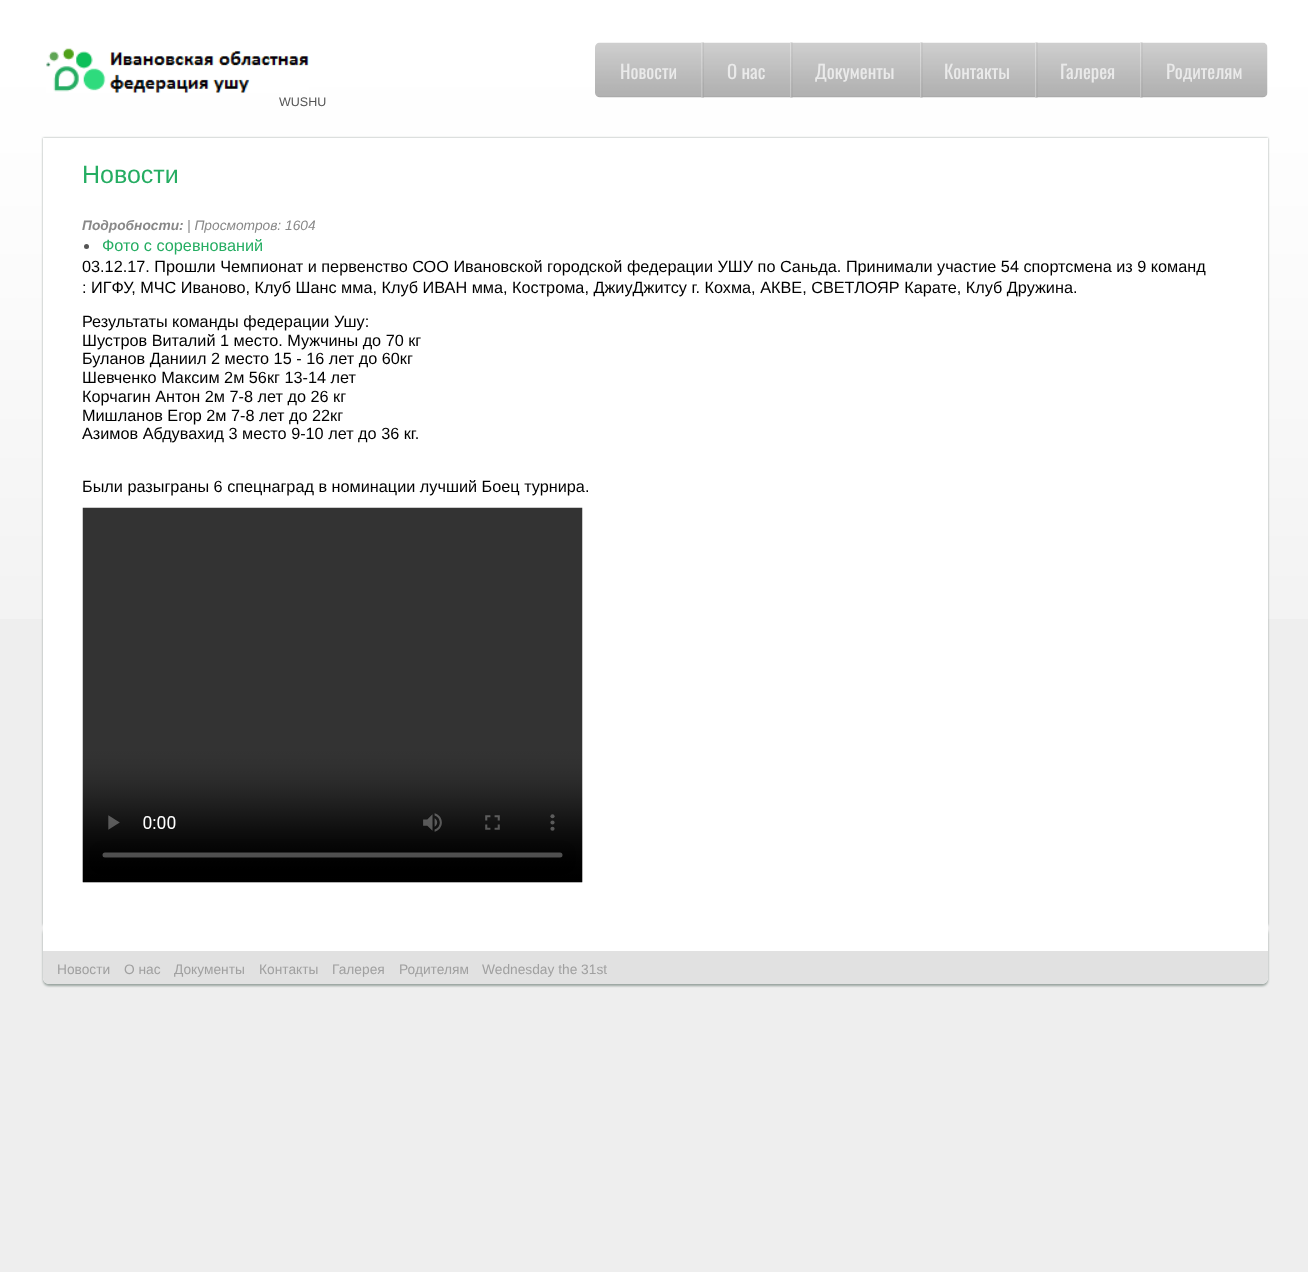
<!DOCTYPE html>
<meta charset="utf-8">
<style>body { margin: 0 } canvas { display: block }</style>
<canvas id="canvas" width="1308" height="1272"></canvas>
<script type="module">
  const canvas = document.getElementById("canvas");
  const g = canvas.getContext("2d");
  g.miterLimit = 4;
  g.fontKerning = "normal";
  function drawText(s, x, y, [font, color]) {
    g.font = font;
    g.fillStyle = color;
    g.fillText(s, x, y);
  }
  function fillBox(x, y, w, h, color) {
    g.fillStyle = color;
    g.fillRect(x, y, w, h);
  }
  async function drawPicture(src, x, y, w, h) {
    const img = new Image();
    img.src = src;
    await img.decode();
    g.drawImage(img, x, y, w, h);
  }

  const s1 = ["18.75px Oswald", "#EAEAEA"];
  const s2 = ["12.5px Liberation Sans", "#555555"];
  const s3 = ["25px Liberation Sans", "#25AD62"];
  const s4 = ["italic bold 13.75px Liberation Sans", "#888888"];
  const s5 = ["italic 13.75px Liberation Sans", "#888888"];
  const s6 = ["16.25px Liberation Sans", "#25AD62"];
  const s7 = ["16.25px Liberation Sans", "#000000"];
  const s8 = ["13.75px Liberation Sans", "#A0A0A0"];

  fillBox(0, 0, 1308, 1272, "#EEEEEE");
  await drawPicture("pic1.png", 0, 0, 1308, 619);
  await drawPicture("pic2.png", 46, 48, 263, 45);
  await drawPicture("pic3.png", 595, 42, 673, 56);
  drawText("Новости", 620, 79, s1);
  await drawPicture("pic4.png", 701, 42, 3, 56);
  drawText("О нас", 727, 79, s1);
  await drawPicture("pic5.png", 790, 42, 3, 56);
  drawText("Документы", 815, 79, s1);
  await drawPicture("pic5.png", 920, 42, 3, 56);
  drawText("Контакты", 944, 79, s1);
  await drawPicture("pic6.png", 1035, 42, 3, 56);
  drawText("Галерея", 1060, 79, s1);
  await drawPicture("pic6.png", 1140, 42, 3, 56);
  drawText("Родителям", 1166, 79, s1);
  drawText("WUSHU", 279, 106, s2);
  g.fillStyle = "#98A39E";
  g.filter = "blur(1px)";
  g.beginPath();
  g.rect(43, 138, 1225, 787);
  g.fill();
  g.filter = "none";
  fillBox(43, 138, 1225, 787, "#FFFFFF");
  drawText("Новости", 82, 183, s3);
  drawText("Подробности:", 82, 230, s4);
  drawText("| Просмотров: 1604", 187, 230, s5);
  g.fillStyle = "#555555";
  g.beginPath();
  g.arc(86.5, 246.5, 2.5, 0, Math.PI * 2);
  g.fill();
  drawText("Фото с соревнований", 102, 251, s6);
  drawText("03.12.17. Прошли Чемпионат и первенство СОО Ивановской городской федерации УШУ по Саньда. Принимали участие 54 спортсмена из 9 команд", 82, 272, s7);
  drawText(": ИГФУ, МЧС Иваново, Клуб Шанс мма, Клуб ИВАН мма, Кострома, ДжиуДжитсу г. Кохма, АКВЕ, СВЕТЛОЯР Карате, Клуб Дружина.", 82, 293, s7);
  drawText("Результаты команды федерации Ушу:", 82, 327, s7);
  drawText("Шустров Виталий 1 место. Мужчины до 70 кг", 82, 346, s7);
  drawText("Буланов Даниил 2 место 15 - 16 лет до 60кг", 82, 364, s7);
  drawText("Шевченко Максим 2м 56кг 13-14 лет", 82, 383, s7);
  drawText("Корчагин Антон 2м 7-8 лет до 26 кг", 82, 402, s7);
  drawText("Мишланов Егор 2м 7-8 лет до 22кг", 82, 421, s7);
  drawText("Азимов Абдувахид 3 место 9-10 лет до 36 кг.", 82, 439, s7);
  drawText("Были разыграны 6 спецнаград в номинации лучший Боец турнира.", 82, 492, s7);
  await drawPicture("pic7.png", 82, 507, 501, 376);
  g.fillStyle = "#98A39E";
  g.filter = "blur(1px)";
  g.beginPath();
  g.roundRect(43, 928, 1225, 58, 6);
  g.fill();
  g.filter = "none";
  g.fillStyle = "#FFFFFF";
  g.beginPath();
  g.roundRect(43, 925, 1225, 59, [0, 0, 6, 6]);
  g.fill();
  g.fillStyle = "#E1E1E1";
  g.beginPath();
  g.roundRect(43, 951, 1225, 33, [0, 0, 6, 6]);
  g.fill();
  drawText("Новости", 57, 974, s8);
  drawText("О нас", 124, 974, s8);
  drawText("Документы", 174, 974, s8);
  drawText("Контакты", 259, 974, s8);
  drawText("Галерея", 332, 974, s8);
  drawText("Родителям", 399, 974, s8);
  drawText("Wednesday the 31st", 482, 974, s8);
</script>
